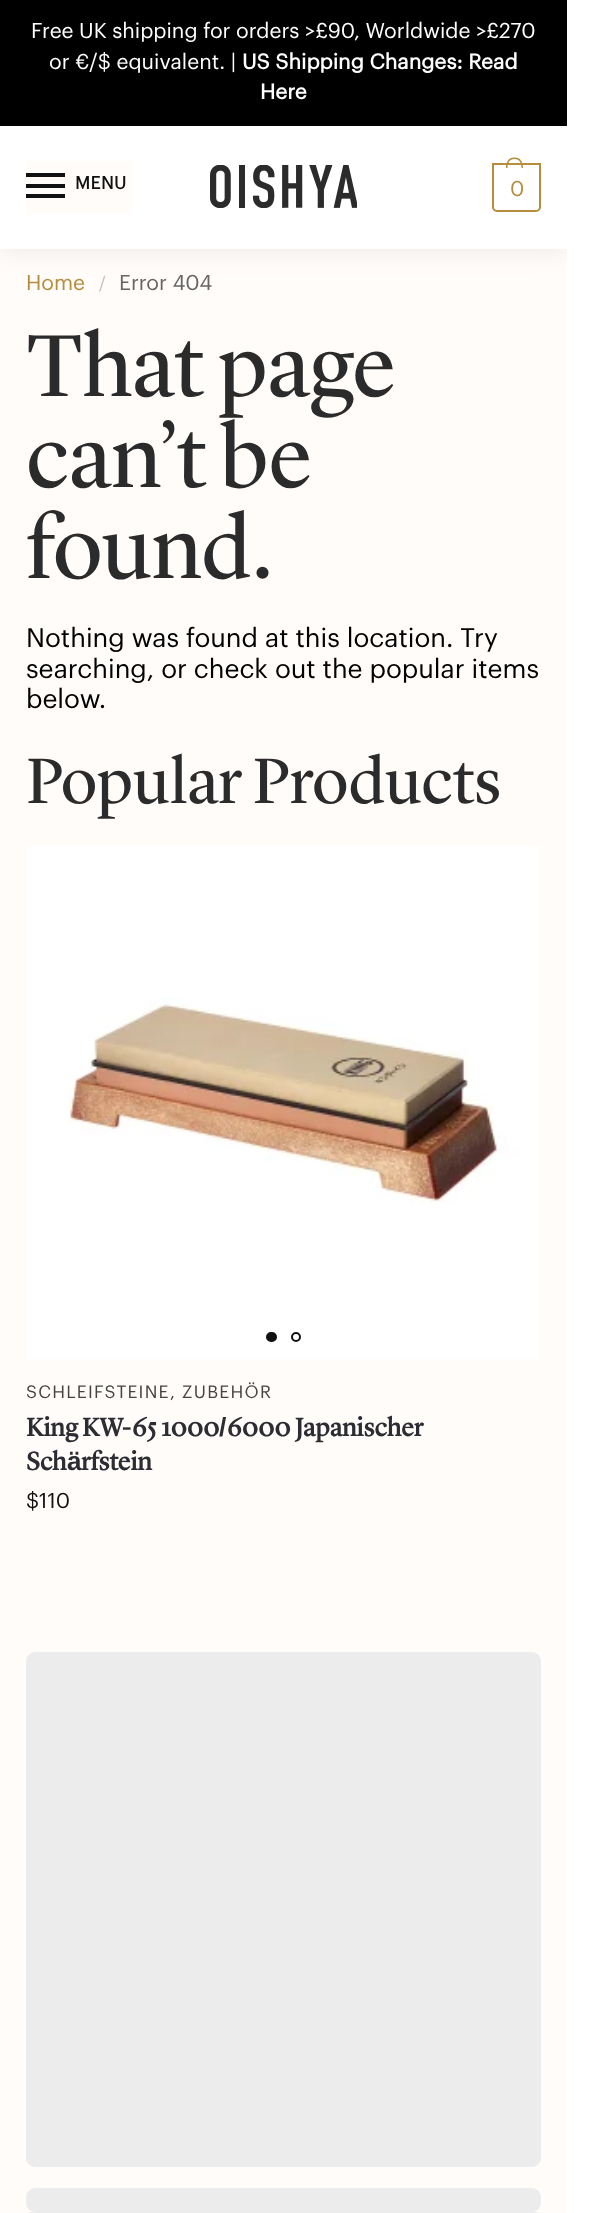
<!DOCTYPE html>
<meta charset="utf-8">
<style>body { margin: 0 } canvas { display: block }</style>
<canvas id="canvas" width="593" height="2213"></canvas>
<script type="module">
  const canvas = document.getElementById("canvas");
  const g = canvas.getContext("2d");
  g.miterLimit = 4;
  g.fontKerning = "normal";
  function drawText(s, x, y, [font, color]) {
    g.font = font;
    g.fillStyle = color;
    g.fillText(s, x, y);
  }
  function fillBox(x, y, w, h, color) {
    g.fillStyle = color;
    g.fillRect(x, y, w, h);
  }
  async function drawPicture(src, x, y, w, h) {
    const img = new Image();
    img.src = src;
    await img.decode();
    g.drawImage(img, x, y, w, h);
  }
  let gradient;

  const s1 = ["21px Graphik", "#FFFFFF"];
  const s2 = ["bold 21px Graphik", "#FFFFFF"];
  const s3 = ["bold 17.5px Graphik", "#111111"];
  const s4 = ["21px Graphik", "#B58D3D"];
  const s5 = ["17px Graphik", "#C2C0BF"];
  const s6 = ["21px Graphik", "#666666"];
  const s7 = ["91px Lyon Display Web", "#2B2B2B"];
  const s8 = ["26.25px Graphik", "#000000"];
  const s9 = ["66.5px Lyon Display Web", "#2B2B2B"];
  const s10 = ["17.5px Graphik", "#444444"];
  const s11 = ["bold 26.25px Lyon Display Web", "#2C2D33"];
  const s12 = ["bold 26.25px Liberation Sans", "#2C2D33"];
  const s13 = ["21px Graphik", "#111111"];

  fillBox(0, 0, 593, 2213, "#FFFCFA");
  fillBox(0, 0, 567, 126, "#000000");
  drawText("Free UK shipping for orders >£90, Worldwide >£270", 31, 38, s1);
  drawText("or €/$ equivalent. |", 49, 69, s1);
  drawText("US Shipping Changes: Read", 242, 69, s2);
  drawText("Here", 260, 99, s2);
  fillBox(0, 126, 567, 123, "#FFFFFF");
  g.save();
  g.beginPath();
  g.moveTo(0, 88);
  g.lineTo(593, 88);
  g.lineTo(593, 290);
  g.lineTo(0, 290);
  g.closePath();
  g.moveTo(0, 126);
  g.lineTo(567, 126);
  g.lineTo(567, 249);
  g.lineTo(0, 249);
  g.closePath();
  g.clip("evenodd");
  g.fillStyle = "rgba(0, 0, 0, 0.08)";
  g.filter = "blur(13px)";
  g.beginPath();
  g.rect(0, 128, 567, 122);
  g.fill();
  g.filter = "none";
  g.restore();
  fillBox(567, 0, 26, 2213, "#FFFFFF");
  fillBox(26, 161, 105, 53, "#FFFCFA");
  fillBox(26, 173, 39, 4, "#111111");
  fillBox(26, 184, 39, 4, "#111111");
  g.letterSpacing = "0.5px";
  drawText("MENU", 75, 189, s3);
  fillBox(26, 194, 39, 4, "#111111");
  await drawPicture("pic1.png", 210, 165, 147, 43);
  g.beginPath();
  g.roundRect(493, 164, 47, 47, [0, 0, 4, 4]);
  g.strokeStyle = "#B58D3D";
  g.lineWidth = 2;
  g.stroke();
  g.fillStyle = "#B58D3D";
  g.beginPath();
  g.moveTo(514.5, 157.5);
  g.bezierCurveTo(521, 157.5, 523, 162.5, 523, 168);
  g.lineTo(506, 168);
  g.bezierCurveTo(506, 162.5, 508, 157.5, 514.5, 157.5);
  g.closePath();
  g.moveTo(514.5, 159);
  g.bezierCurveTo(520, 159, 521.5, 163.5, 521.5, 168);
  g.lineTo(507.5, 168);
  g.bezierCurveTo(507.5, 163.5, 509, 159, 514.5, 159);
  g.closePath();
  g.fill("evenodd");
  g.letterSpacing = "-1px";
  drawText("0", 510, 196, s4);
  g.letterSpacing = "0px";
  drawText("Home", 26, 290, s4);
  drawText("/", 99, 289, s5);
  drawText("Error 404", 119, 290, s6);
  g.letterSpacing = "-0.5px";
  drawText("That page", 26, 396, s7);
  drawText("can’t be", 26, 487, s7);
  drawText("found.", 26, 578, s7);
  g.letterSpacing = "0px";
  drawText("Nothing was found at this location. Try", 26, 647, s8);
  drawText("searching, or check out the popular items", 26, 678, s8);
  drawText("below.", 26, 708, s8);
  g.letterSpacing = "-0.3px";
  drawText("Popular Products", 26, 803, s9);
  await drawPicture("pic2.png", 27, 846, 513, 513);
  g.fillStyle = "#111111";
  g.beginPath();
  g.roundRect(267, 1333, 9, 8, 4);
  g.fill();
  g.strokeStyle = "#111111";
  g.stroke();
  g.beginPath();
  g.arc(296, 1337, 4, 0, Math.PI * 2);
  g.stroke();
  g.letterSpacing = "1.25px";
  drawText("SCHLEIFSTEINE", 26, 1398, s10);
  drawText(", ZUBEHÖR", 170, 1398, s10);
  g.letterSpacing = "0px";
  drawText("King KW-65 1000", 26, 1436, s11);
  drawText("/", 219, 1436, s12);
  drawText("6000 Japanischer", 227, 1436, s11);
  drawText("Sch", 26, 1470, s11);
  drawText("ä", 67, 1470, s12);
  drawText("rfstein", 81, 1470, s11);
  drawText("$", 26, 1508, s13);
  drawText("110", 39, 1508, s13);
  gradient = g.createLinearGradient(13, 1726, 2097, 2093);
  gradient.addColorStop(0.3, "#ECECEC");
  gradient.addColorStop(0.5, "#F5F5F5");
  gradient.addColorStop(0.7, "#ECECEC");
  g.fillStyle = gradient;
  g.beginPath();
  g.roundRect(26, 1652, 515, 515, 9);
  g.fill();
  gradient = g.createLinearGradient(55, 2023, 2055, 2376);
  gradient.addColorStop(0.3, "#ECECEC");
  gradient.addColorStop(0.5, "#F5F5F5");
  gradient.addColorStop(0.7, "#ECECEC");
  g.fillStyle = gradient;
  g.beginPath();
  g.roundRect(26, 2188, 515, 24, 9);
  g.fill();
  gradient = g.createLinearGradient(53, 2060, 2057, 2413);
  gradient.addColorStop(0.3, "#ECECEC");
  gradient.addColorStop(0.5, "#F5F5F5");
  gradient.addColorStop(0.7, "#ECECEC");
  g.fillStyle = gradient;
  g.beginPath();
  g.roundRect(26, 2212, 515, 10, 9);
  g.fill();
</script>
